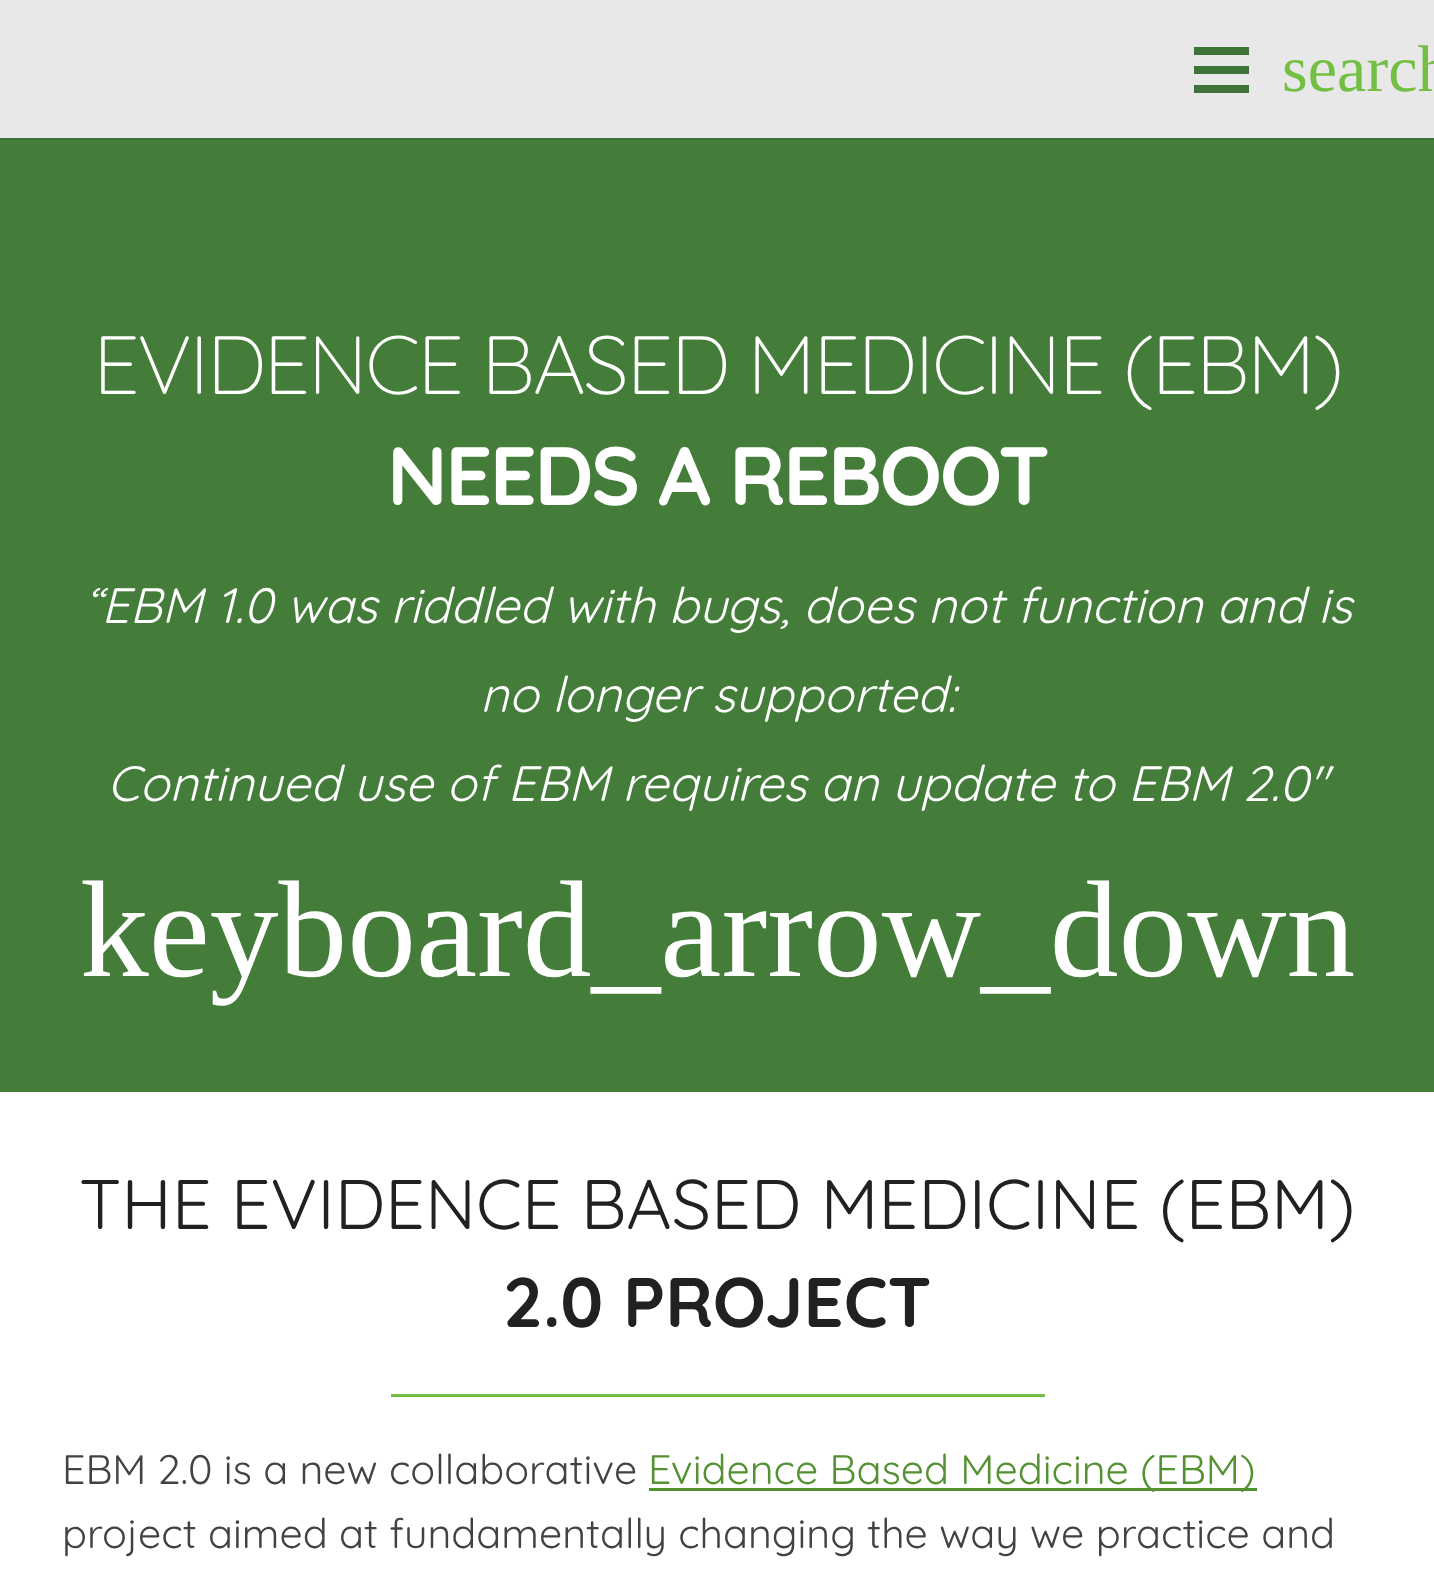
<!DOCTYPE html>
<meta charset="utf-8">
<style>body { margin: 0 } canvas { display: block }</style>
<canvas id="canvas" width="1434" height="1585"></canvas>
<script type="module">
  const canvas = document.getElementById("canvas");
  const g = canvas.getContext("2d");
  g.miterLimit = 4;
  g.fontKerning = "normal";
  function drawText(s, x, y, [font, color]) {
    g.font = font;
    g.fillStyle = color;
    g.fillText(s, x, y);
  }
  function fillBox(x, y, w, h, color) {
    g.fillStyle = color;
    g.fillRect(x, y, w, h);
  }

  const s1 = ["66px Liberation Serif", "#73BF44"];
  const s2 = ["300 82.5px Quicksand", "#FFFFFF"];
  const s3 = ["bold 82.5px Quicksand", "#FFFFFF"];
  const s4 = ["italic 49.5px Quicksand", "#FFFFFF"];
  const s5 = ["137.5px Liberation Serif", "#FFFFFF"];
  const s6 = ["70.1px Quicksand", "#212121"];
  const s7 = ["bold 70.1px Quicksand", "#212121"];
  const s8 = ["41.25px Quicksand", "#424242"];
  const s9 = ["41.25px Quicksand", "#539131"];

  fillBox(0, 0, 1434, 1585, "#FFFFFF");
  g.fillStyle = "#3F7234";
  g.beginPath();
  g.moveTo(0, 138);
  g.lineTo(0, 140);
  g.lineTo(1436, 140);
  g.lineTo(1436, 3);
  g.lineTo(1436, 138);
  g.closePath();
  g.fill();
  fillBox(0, 0, 1434, 138, "#E8E8E8");
  fillBox(1194, 66, 55, 8, "#3F7438");
  fillBox(1194, 47, 55, 8, "#3F7438");
  fillBox(1194, 85, 55, 8, "#3F7438");
  drawText("search", 1282, 91, s1);
  fillBox(0, 140, 1434, 952, "#447C39");
  g.letterSpacing = "-2.5px";
  drawText("EVIDENCE BASED MEDICINE (EBM)", 93, 394, s2);
  drawText("NEEDS A REBOOT", 387, 505, s3);
  g.letterSpacing = "0px";
  drawText("“EBM 1.0 was riddled with bugs, does not function and is", 84, 623, s4);
  drawText("no longer supported:", 480, 712, s4);
  drawText("Continued use of EBM requires an update to EBM 2.0″", 107, 801, s4);
  drawText("keyboard_arrow_down", 80, 976, s5);
  drawText("THE EVIDENCE BASED MEDICINE (EBM)", 79, 1229, s6);
  drawText("2.0 PROJECT", 503, 1327, s7);
  fillBox(391, 1394, 654, 3, "#73BF44");
  drawText("EBM 2.0 is a new collaborative", 62, 1484, s8);
  fillBox(649, 1488, 608, 3, "#539131");
  drawText("Evidence Based Medicine (EBM)", 648, 1484, s9);
  drawText("project aimed at fundamentally changing the way we practice and", 62, 1548, s8);
</script>
